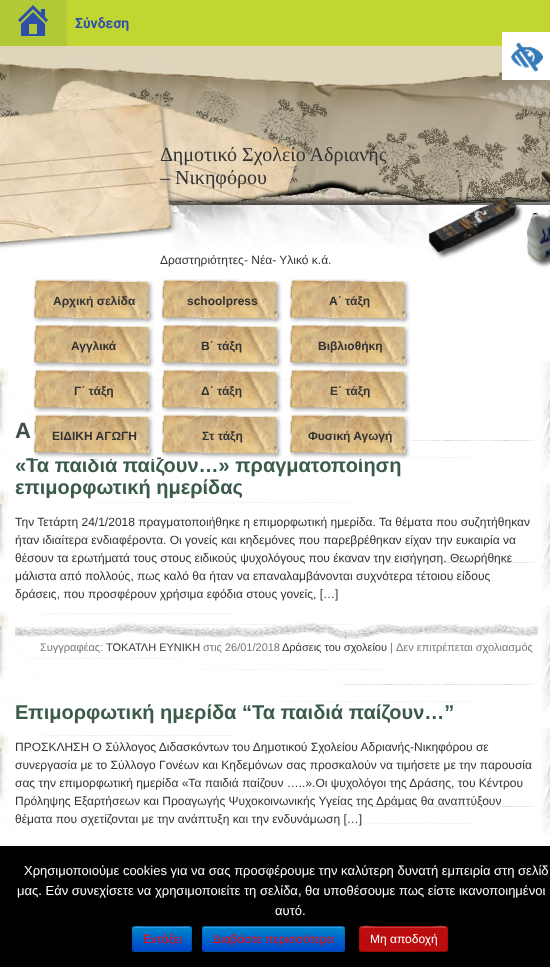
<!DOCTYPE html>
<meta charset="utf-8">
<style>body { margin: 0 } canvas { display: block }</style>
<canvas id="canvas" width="550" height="967"></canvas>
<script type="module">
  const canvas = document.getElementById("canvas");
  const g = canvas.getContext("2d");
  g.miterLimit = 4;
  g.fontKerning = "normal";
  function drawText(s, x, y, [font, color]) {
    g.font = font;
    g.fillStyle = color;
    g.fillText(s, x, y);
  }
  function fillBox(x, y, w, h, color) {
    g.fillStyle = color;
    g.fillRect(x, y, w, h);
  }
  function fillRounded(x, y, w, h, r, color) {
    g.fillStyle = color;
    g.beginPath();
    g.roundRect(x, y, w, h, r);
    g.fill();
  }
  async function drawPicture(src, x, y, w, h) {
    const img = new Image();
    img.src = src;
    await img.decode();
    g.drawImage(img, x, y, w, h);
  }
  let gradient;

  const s1 = ["bold 14px Roboto", "#2E50AA"];
  const s2 = ["20px Liberation Serif", "#333333"];
  const s3 = ["12px Liberation Sans", "#333333"];
  const s4 = ["bold 12px Liberation Sans", "#333333"];
  const s5 = ["bold 20px Liberation Sans", "#3B5A4A"];
  const s6 = ["bold 22px Liberation Sans", "#414D4C"];
  const s7 = ["11px Liberation Sans", "#777777"];
  const s8 = ["11px Liberation Sans", "#333333"];
  const s9 = ["13px Liberation Sans", "#FFFFFF"];
  const s10 = ["12px Liberation Sans", "#FF0000"];
  const s11 = ["12px Liberation Sans", "#FFFFFF"];

  fillBox(0, 0, 550, 967, "#DED5BA");
  fillBox(67, 0, 483, 46, "#C1D630");
  fillBox(0, 0, 67, 46, "#B1C935");
  await drawPicture("pic1.png", 18, 5, 30, 31);
  drawText("Σύνδεση", 75, 28, s1);
  await drawPicture("pic3.png", 0, 53, 550, 300);
  fillBox(502, 32, 48, 48, "#FFFFFF");
  await drawPicture("pic2.png", 511, 43, 32, 29);
  drawText("Δημοτικό Σχολείο Αδριανής", 160, 161, s2);
  drawText("– Νικηφόρου", 160, 184, s2);
  drawText("Δραστηριότητες- Νέα- Υλικό κ.ά.", 160, 264, s3);
  await drawPicture("pic4.png", 33, 279, 122, 45);
  drawText("Αρχική σελίδα", 53, 305, s4);
  await drawPicture("pic4.png", 161, 279, 122, 45);
  drawText("schoolpress", 187, 305, s4);
  await drawPicture("pic4.png", 289, 279, 122, 45);
  drawText("Α΄ τάξη", 329, 305, s4);
  await drawPicture("pic5.png", 0, 353, 550, 493);
  await drawPicture("pic4.png", 33, 324, 122, 45);
  drawText("Αγγλικά", 71, 350, s4);
  await drawPicture("pic4.png", 161, 324, 122, 45);
  drawText("Β΄ τάξη", 201, 350, s4);
  await drawPicture("pic4.png", 289, 324, 122, 45);
  drawText("Βιβλιοθήκη", 318, 350, s4);
  await drawPicture("pic4.png", 33, 369, 122, 45);
  drawText("Γ΄ τάξη", 74, 395, s4);
  await drawPicture("pic4.png", 161, 369, 122, 45);
  drawText("Δ΄ τάξη", 201, 395, s4);
  await drawPicture("pic4.png", 289, 369, 122, 45);
  drawText("Ε΄ τάξη", 330, 395, s4);
  drawText("«Τα παιδιά παίζουν…» πραγματοποίηση", 15, 472, s5);
  await drawPicture("pic4.png", 33, 414, 122, 45);
  drawText("ΕΙΔΙΚΗ ΑΓΩΓΗ", 52, 440, s4);
  await drawPicture("pic4.png", 161, 414, 122, 45);
  drawText("Στ τάξη", 202, 440, s4);
  await drawPicture("pic4.png", 289, 414, 122, 45);
  drawText("Φυσική Αγωγή", 308, 440, s4);
  drawText("Α", 15, 438, s6);
  drawText("επιμορφωτική ημερίδας", 15, 494, s5);
  drawText("Την Τετάρτη 24/1/2018 πραγματοποιήθηκε η επιμορφωτική ημερίδα. Τα θέματα που συζητήθηκαν", 15, 526, s3);
  drawText("ήταν ιδιαίτερα ενδιαφέροντα. Οι γονείς και κηδεμόνες που παρεβρέθηκαν είχαν την ευκαιρία να", 15, 544, s3);
  drawText("θέσουν τα ερωτήματά τους στους ειδικούς ψυχολόγους που έκαναν την εισήγηση. Θεωρήθηκε", 15, 562, s3);
  drawText("μάλιστα από πολλούς, πως καλό θα ήταν να επαναλαμβάνονται συχνότερα τέτοιου είδους", 15, 580, s3);
  drawText("δράσεις, που προσφέρουν χρήσιμα εφόδια στους γονείς, […]", 15, 598, s3);
  await drawPicture("pic6.png", 15, 623, 523, 17);
  drawText("Συγγραφέας:", 40, 651, s7);
  drawText("ΤΟΚΑΤΛΗ ΕΥΝΙΚΗ", 106, 651, s8);
  drawText("στις 26/01/2018", 203, 651, s7);
  drawText("Δράσεις του σχολείου", 282, 651, s8);
  drawText("|", 390, 651, s7);
  drawText("Δεν επιτρέπεται σχολιασμός", 396, 651, s7);
  drawText("Επιμορφωτική ημερίδα “Τα παιδιά παίζουν…”", 15, 719, s5);
  drawText("ΠΡΟΣΚΛΗΣΗ Ο Σύλλογος Διδασκόντων του Δημοτικού Σχολείου Αδριανής-Νικηφόρου σε", 15, 751, s3);
  drawText("συνεργασία με το Σύλλογο Γονέων και Κηδεμόνων σας προσκαλούν να τιμήσετε με την παρουσία", 15, 769, s3);
  drawText("σας την επιμορφωτική ημερίδα «Τα παιδιά παίζουν …..».Οι ψυχολόγοι της Δράσης, του Κέντρου", 15, 787, s3);
  drawText("Πρόληψης Εξαρτήσεων και Προαγωγής Ψυχοκοινωνικής Υγείας της Δράμας θα αναπτύξουν", 15, 805, s3);
  drawText("θέματα που σχετίζονται με την ανάπτυξη και την ενδυνάμωση […]", 15, 823, s3);
  fillBox(0, 846, 550, 121, "#000000");
  drawText("Χρησιμοποιούμε cookies για να σας προσφέρουμε την καλύτερη δυνατή εμπειρία στη σελίδ", 24, 875, s9);
  drawText("μας. Εάν συνεχίσετε να χρησιμοποιείτε τη σελίδα, θα υποθέσουμε πως είστε ικανοποιημένοι", 17, 895, s9);
  drawText("αυτό.", 275, 915, s9);
  fillRounded(132, 926, 60, 26, 3, "#006DCC");
  g.save();
  g.beginPath();
  g.roundRect(132, 926, 60, 26, 3);
  g.clip();
  gradient = g.createLinearGradient(162, 927, 162, 951);
  gradient.addColorStop(0, "#0088CC");
  gradient.addColorStop(1, "#0044CC");
  g.fillStyle = gradient;
  g.fillRect(132, 927, 60, 24);
  g.restore();
  g.fillStyle = "#339FD6";
  g.beginPath();
  g.moveTo(135, 928);
  g.lineTo(189, 928);
  g.bezierCurveTo(190, 928, 191, 929, 191, 930);
  g.bezierCurveTo(191, 925, 184, 927, 180, 927);
  g.lineTo(144, 927);
  g.bezierCurveTo(140, 927, 133, 925, 133, 930);
  g.bezierCurveTo(133, 929, 134, 928, 135, 928);
  g.closePath();
  g.fill();
  g.beginPath();
  g.moveTo(191, 951);
  g.lineTo(189, 951.5);
  g.lineTo(135, 951.5);
  g.lineTo(133, 951);
  g.strokeStyle = "rgba(0, 0, 0, 0.25)";
  g.stroke();
  g.beginPath();
  g.moveTo(133, 951);
  g.bezierCurveTo(131.5, 949, 132.5, 941.5, 132.5, 939);
  g.bezierCurveTo(132.5, 925, 130, 926.5, 144, 926.5);
  g.lineTo(180, 926.5);
  g.bezierCurveTo(194, 926.5, 191.5, 925, 191.5, 939);
  g.bezierCurveTo(191.5, 941.5, 192.5, 949, 191, 951);
  g.strokeStyle = "rgba(0, 0, 0, 0.1)";
  g.stroke();
  drawText("Εντάξει", 143, 943, s10);
  fillRounded(202, 926, 143, 26, 3, "#006DCC");
  g.save();
  g.beginPath();
  g.roundRect(202, 926, 143, 26, 3);
  g.clip();
  gradient = g.createLinearGradient(274, 927, 274, 951);
  gradient.addColorStop(0, "#0088CC");
  gradient.addColorStop(1, "#0044CC");
  g.fillStyle = gradient;
  g.fillRect(202, 927, 143, 24);
  g.restore();
  g.fillStyle = "rgba(255, 255, 255, 0.2)";
  g.beginPath();
  g.moveTo(205, 928);
  g.lineTo(342, 928);
  g.bezierCurveTo(343, 928, 344, 929, 344, 930);
  g.bezierCurveTo(344, 929, 344, 928, 343, 927);
  g.lineTo(205, 927);
  g.lineTo(203, 928);
  g.lineTo(203, 930);
  g.bezierCurveTo(203, 929, 204, 928, 205, 928);
  g.closePath();
  g.fill();
  g.beginPath();
  g.moveTo(344, 951);
  g.lineTo(342, 951.5);
  g.lineTo(205, 951.5);
  g.lineTo(203, 951);
  g.strokeStyle = "rgba(0, 0, 0, 0.25)";
  g.stroke();
  g.beginPath();
  g.moveTo(203, 951);
  g.bezierCurveTo(201.5, 949, 202.5, 941.5, 202.5, 939);
  g.lineTo(202.5, 932.5);
  g.bezierCurveTo(202.5, 930.5, 202, 926.5, 205, 926.5);
  g.lineTo(342, 926.5);
  g.bezierCurveTo(345, 926.5, 344.5, 930.5, 344.5, 932.5);
  g.lineTo(344.5, 939);
  g.bezierCurveTo(344.5, 941.5, 345.5, 949, 344, 951);
  g.strokeStyle = "rgba(0, 0, 0, 0.1)";
  g.stroke();
  drawText("Διαβάστε περισσότερα", 213, 943, s10);
  fillRounded(359, 926, 89, 26, 3, "#BB0D0D");
  g.fillStyle = "#C93D3D";
  g.beginPath();
  g.moveTo(362, 928);
  g.lineTo(445, 928);
  g.bezierCurveTo(446, 928, 447, 929, 447, 930);
  g.bezierCurveTo(447, 923, 434, 927, 431, 927);
  g.lineTo(376, 927);
  g.bezierCurveTo(373, 927, 360, 923, 360, 930);
  g.bezierCurveTo(360, 929, 361, 928, 362, 928);
  g.closePath();
  g.fill();
  g.beginPath();
  g.moveTo(447, 951);
  g.lineTo(445, 951.5);
  g.lineTo(431, 951.5);
  g.bezierCurveTo(424, 951.5, 362.5, 952.5, 360.5, 951);
  g.lineTo(360, 951);
  g.strokeStyle = "rgba(0, 0, 0, 0.25)";
  g.stroke();
  g.beginPath();
  g.moveTo(360, 951);
  g.bezierCurveTo(358.5, 949, 359.5, 944.5, 359.5, 942.5);
  g.bezierCurveTo(359.5, 923, 356, 926.5, 376, 926.5);
  g.lineTo(431, 926.5);
  g.bezierCurveTo(451, 926.5, 447.5, 923, 447.5, 942.5);
  g.bezierCurveTo(447.5, 944.5, 448.5, 949, 447, 951);
  g.strokeStyle = "rgba(0, 0, 0, 0.1)";
  g.stroke();
  drawText("Μη αποδοχή", 370, 943, s11);
</script>
